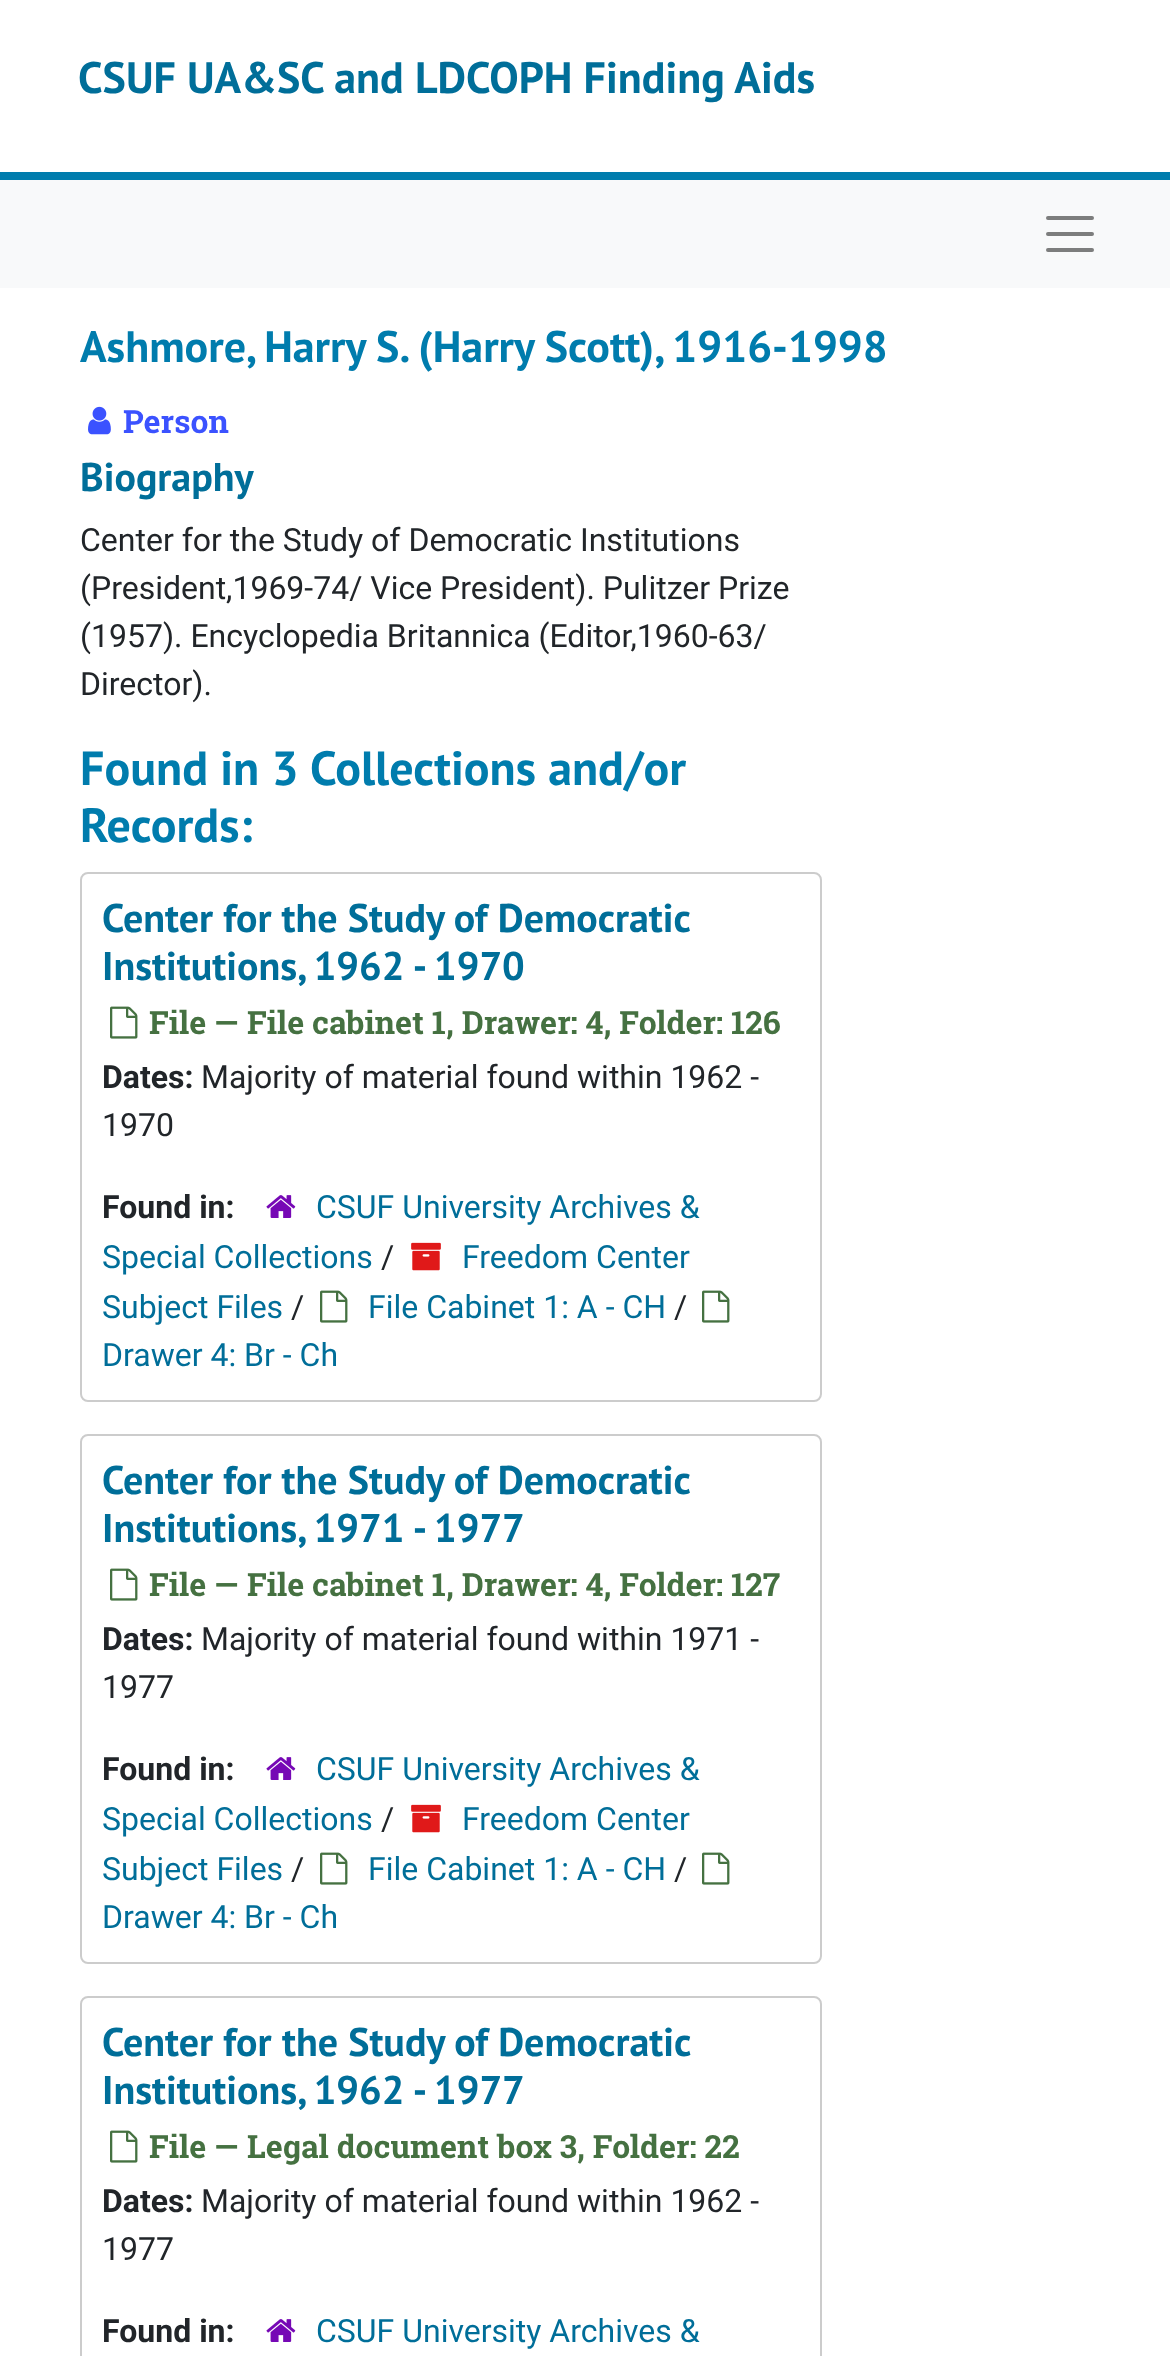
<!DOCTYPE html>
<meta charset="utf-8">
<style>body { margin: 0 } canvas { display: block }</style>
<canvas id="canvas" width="1170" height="2356"></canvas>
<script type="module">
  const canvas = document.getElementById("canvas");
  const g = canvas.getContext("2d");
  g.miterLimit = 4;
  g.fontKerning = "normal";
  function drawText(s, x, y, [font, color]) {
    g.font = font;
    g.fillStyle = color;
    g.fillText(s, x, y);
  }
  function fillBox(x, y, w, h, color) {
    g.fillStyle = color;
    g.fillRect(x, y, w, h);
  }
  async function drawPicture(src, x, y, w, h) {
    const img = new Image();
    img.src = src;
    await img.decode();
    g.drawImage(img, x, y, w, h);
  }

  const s1 = ["bold 44px PT Sans", "#006E99"];
  const s2 = ["bold 44px PT Sans", "#007CAD"];
  const s3 = ["bold 32px Roboto Slab", "#3B52FF"];
  const s4 = ["bold 40px PT Sans", "#006E99"];
  const s5 = ["32px Roboto", "#212529"];
  const s6 = ["bold 48px PT Sans", "#007CAD"];
  const s7 = ["bold 32px Roboto Slab", "#457141"];
  const s8 = ["bold 32px Roboto", "#212529"];
  const s9 = ["32px Roboto", "#006E99"];

  fillBox(0, 0, 1170, 2356, "#FFFFFF");
  fillBox(0, 172, 1170, 8, "#007CAD");
  drawText("CSUF UA&SC and LDCOPH Finding Aids", 78, 93, s1);
  fillBox(0, 180, 1170, 108, "#F8F9FA");
  g.beginPath();
  g.moveTo(1048, 218);
  g.lineTo(1092, 218);
  g.moveTo(1048, 234);
  g.lineTo(1092, 234);
  g.moveTo(1048, 250);
  g.lineTo(1092, 250);
  g.strokeStyle = "#7C7D7D";
  g.lineWidth = 4;
  g.lineCap = "round";
  g.stroke();
  drawText("Ashmore, Harry S. (Harry Scott), 1916-1998", 80, 362, s2);
  await drawPicture("pic1.png", 88, 406, 23, 29);
  drawText("Person", 123, 433, s3);
  drawText("Biography", 80, 491, s4);
  drawText("Center for the Study of Democratic Institutions", 80, 551, s5);
  drawText("(President,1969-74/ Vice President). Pulitzer Prize", 80, 599, s5);
  drawText("(1957). Encyclopedia Britannica (Editor,1960-63/", 80, 647, s5);
  drawText("Director).", 80, 695, s5);
  drawText("Found in 3 Collections and/or", 80, 785, s6);
  drawText("Records:", 80, 842, s6);
  g.beginPath();
  g.roundRect(81, 873, 740, 528, 7);
  g.strokeStyle = "#CCCCCC";
  g.lineWidth = 2;
  g.stroke();
  drawText("Center for the Study of Democratic", 102, 932, s4);
  drawText("Institutions, 1962 - 1970", 102, 980, s4);
  await drawPicture("pic2.png", 110, 1006, 28, 33);
  drawText("File — File cabinet 1, Drawer: 4, Folder: 126", 149, 1034, s7);
  drawText("Dates:", 102, 1088, s8);
  drawText("Majority of material found within 1962 -", 201, 1088, s5);
  drawText("1970", 102, 1136, s5);
  await drawPicture("pic3.png", 266, 1195, 30, 23);
  drawText("CSUF University Archives &", 316, 1218, s9);
  drawText("Special Collections", 102, 1268, s9);
  drawText("Found in:", 102, 1218, s8);
  await drawPicture("pic4.png", 411, 1242, 30, 29);
  drawText("Freedom Center", 462, 1268, s9);
  drawText("Subject Files", 102, 1318, s9);
  drawText("/", 381, 1268, s5);
  drawText("/", 291, 1318, s5);
  await drawPicture("pic2.png", 320, 1290, 28, 33);
  drawText("File Cabinet 1: A - CH", 368, 1318, s9);
  drawText("/", 674, 1318, s5);
  await drawPicture("pic2.png", 702, 1290, 28, 33);
  drawText("Drawer 4: Br - Ch", 102, 1366, s9);
  g.beginPath();
  g.roundRect(81, 1435, 740, 528, 7);
  g.stroke();
  drawText("Center for the Study of Democratic", 102, 1494, s4);
  drawText("Institutions, 1971 - 1977", 102, 1542, s4);
  await drawPicture("pic2.png", 110, 1568, 28, 33);
  drawText("File — File cabinet 1, Drawer: 4, Folder: 127", 149, 1596, s7);
  drawText("Dates:", 102, 1650, s8);
  drawText("Majority of material found within 1971 -", 201, 1650, s5);
  drawText("1977", 102, 1698, s5);
  await drawPicture("pic3.png", 266, 1757, 30, 23);
  drawText("CSUF University Archives &", 316, 1780, s9);
  drawText("Special Collections", 102, 1830, s9);
  drawText("Found in:", 102, 1780, s8);
  await drawPicture("pic4.png", 411, 1804, 30, 29);
  drawText("Freedom Center", 462, 1830, s9);
  drawText("Subject Files", 102, 1880, s9);
  drawText("/", 381, 1830, s5);
  drawText("/", 291, 1880, s5);
  await drawPicture("pic2.png", 320, 1852, 28, 33);
  drawText("File Cabinet 1: A - CH", 368, 1880, s9);
  drawText("/", 674, 1880, s5);
  await drawPicture("pic2.png", 702, 1852, 28, 33);
  drawText("Drawer 4: Br - Ch", 102, 1928, s9);
  g.beginPath();
  g.roundRect(81, 1997, 740, 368, 7);
  g.stroke();
  drawText("Center for", 102, 2056, s4);
  drawText("the Study of Democratic", 282, 2056, s4);
  drawText("Institutions, 1962 - 1977", 102, 2104, s4);
  await drawPicture("pic2.png", 110, 2130, 28, 33);
  drawText("File — Legal document box 3, Folder: 22", 149, 2158, s7);
  drawText("Dates:", 102, 2212, s8);
  drawText("Majority of material found within 1962 -", 201, 2212, s5);
  drawText("1977", 102, 2260, s5);
  drawText("Found in:", 102, 2342, s8);
  await drawPicture("pic3.png", 266, 2319, 30, 23);
  drawText("CSUF University Archives &", 316, 2342, s9);
</script>
